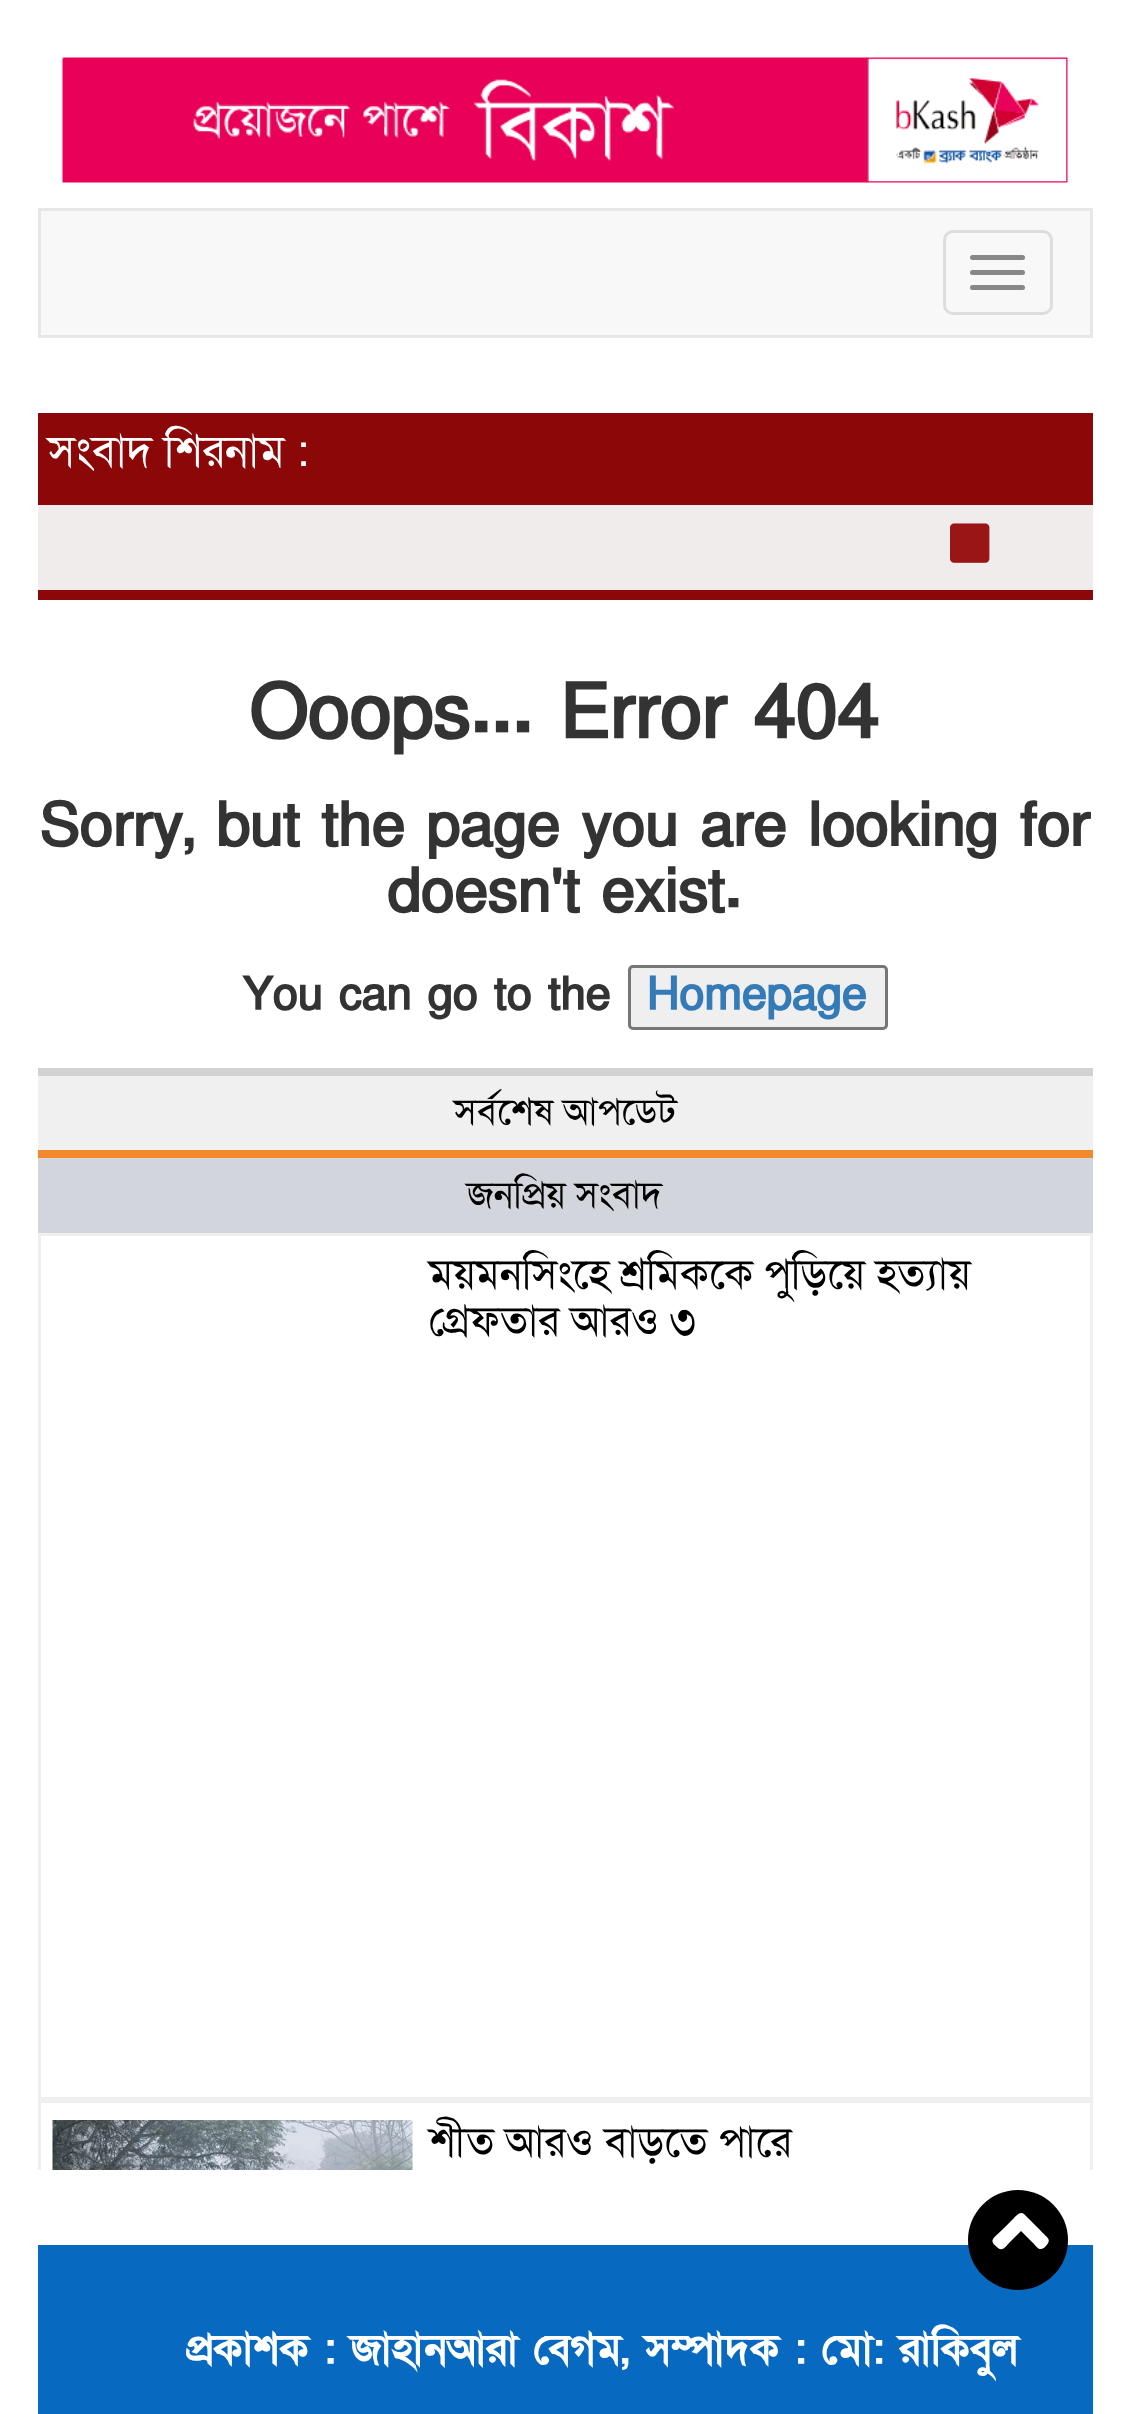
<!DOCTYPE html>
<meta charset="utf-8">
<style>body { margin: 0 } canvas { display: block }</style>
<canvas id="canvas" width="1129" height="2414"></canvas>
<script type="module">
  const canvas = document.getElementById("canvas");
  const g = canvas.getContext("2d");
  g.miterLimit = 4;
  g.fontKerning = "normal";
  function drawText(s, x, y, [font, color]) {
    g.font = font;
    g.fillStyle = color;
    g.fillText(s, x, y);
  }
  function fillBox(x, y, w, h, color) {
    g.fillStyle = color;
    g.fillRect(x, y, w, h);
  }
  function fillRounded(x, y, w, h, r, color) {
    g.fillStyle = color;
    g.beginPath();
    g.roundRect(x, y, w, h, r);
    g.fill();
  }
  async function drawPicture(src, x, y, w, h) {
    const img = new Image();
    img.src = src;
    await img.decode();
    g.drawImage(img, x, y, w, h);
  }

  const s1 = ["45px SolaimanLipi", "#FFFFFF"];
  const s2 = ["bold 75px SolaimanLipi", "#333333"];
  const s3 = ["bold 60px SolaimanLipi", "#333333"];
  const s4 = ["bold 45px SolaimanLipi", "#333333"];
  const s5 = ["bold 45px SolaimanLipi", "#337AB7"];
  const s6 = ["37.5px SolaimanLipi", "#000000"];
  const s7 = ["42.5px SolaimanLipi", "#000000"];
  const s8 = ["bold 42.5px SolaimanLipi", "#FFFFFF"];

  fillBox(0, 0, 1129, 2414, "#FFFFFF");
  await drawPicture("pic1.png", 62, 57, 1006, 126);
  g.fillStyle = "#F8F8F8";
  g.beginPath();
  g.rect(39.5, 209.5, 1052, 127);
  g.fill();
  g.strokeStyle = "#E7E7E7";
  g.lineWidth = 3;
  g.stroke();
  g.beginPath();
  g.roundRect(944.5, 231.5, 107, 82, 8.5);
  g.strokeStyle = "#DDDDDD";
  g.stroke();
  fillRounded(970, 255, 55, 5, 2.5, "#888888");
  fillRounded(970, 270, 55, 5, 2.5, "#888888");
  fillRounded(970, 285, 55, 5, 2.5, "#888888");
  fillBox(38, 413, 1055, 92, "#8B0708");
  drawText("সংবাদ শিরনাম :", 48, 466, s1);
  fillBox(38, 505, 1055, 85, "#F0ECEC");
  fillBox(38, 590, 1055, 10, "#8B0708");
  await drawPicture("pic2.png", 950, 523, 40, 40);
  drawText("Ooops... Error 404", 250, 737, s2);
  drawText("Sorry, but the page you are looking for", 40, 845, s3);
  drawText("doesn't exist.", 388, 911, s3);
  drawText("You can go to the", 243, 1009, s4);
  g.fillStyle = "#EFEFEF";
  g.beginPath();
  g.roundRect(629.5, 966.5, 257, 62, 3.5);
  g.fill();
  g.strokeStyle = "#767676";
  g.stroke();
  drawText("Homepage", 647, 1009, s5);
  fillBox(38, 1158, 1055, 75, "#D2D5DB");
  fillBox(38, 1076, 1055, 74, "#F0F0F0");
  fillBox(38, 1068, 1055, 8, "#D2D2D2");
  drawText("সর্বশেষ আপডেট", 454, 1124, s6);
  fillBox(38, 1150, 1055, 8, "#F28A2D");
  drawText("জনপ্রিয় সংবাদ", 467, 1207, s6);
  g.strokeStyle = "#F0EEEE";
  g.strokeRect(39.5, 1234.5, 1052, 864);
  drawText("ময়মনসিংহে শ্রমিককে পুড়িয়ে হত্যায়", 429, 1288, s7);
  drawText("গ্রেফতার আরও ৩", 429, 1335, s7);
  fillBox(38, 2245, 1055, 169, "#0769BF");
  g.save();
  g.beginPath();
  g.rect(38, 1233, 1055, 937);
  g.clip();
  g.strokeRect(39.5, 2101.5, 1052, 235);
  g.restore();
  await drawPicture("pic3.png", 52, 2120, 361, 50);
  drawText("শীত আরও বাড়তে পারে", 429, 2156, s7);
  g.beginPath();
  g.arc(1018, 2240, 50, 0, Math.PI * 2);
  g.fill();
  g.fillStyle = "#FFFFFF";
  g.beginPath();
  g.moveTo(1024, 2214);
  g.lineTo(1040, 2230);
  g.bezierCurveTo(1047, 2238, 1053, 2239, 1045, 2247);
  g.bezierCurveTo(1039, 2252, 1037, 2247, 1032, 2242);
  g.lineTo(1021, 2231);
  g.lineTo(1010, 2242);
  g.bezierCurveTo(1007, 2245, 1003, 2252, 998, 2248);
  g.bezierCurveTo(988, 2240, 993, 2239, 1002, 2230);
  g.lineTo(1014, 2218);
  g.bezierCurveTo(1016, 2216, 1020, 2211, 1024, 2214);
  g.closePath();
  g.fill();
  drawText("প্রকাশক : জাহানআরা বেগম, সম্পাদক : মো: রাকিবুল", 186, 2363, s8);
</script>
